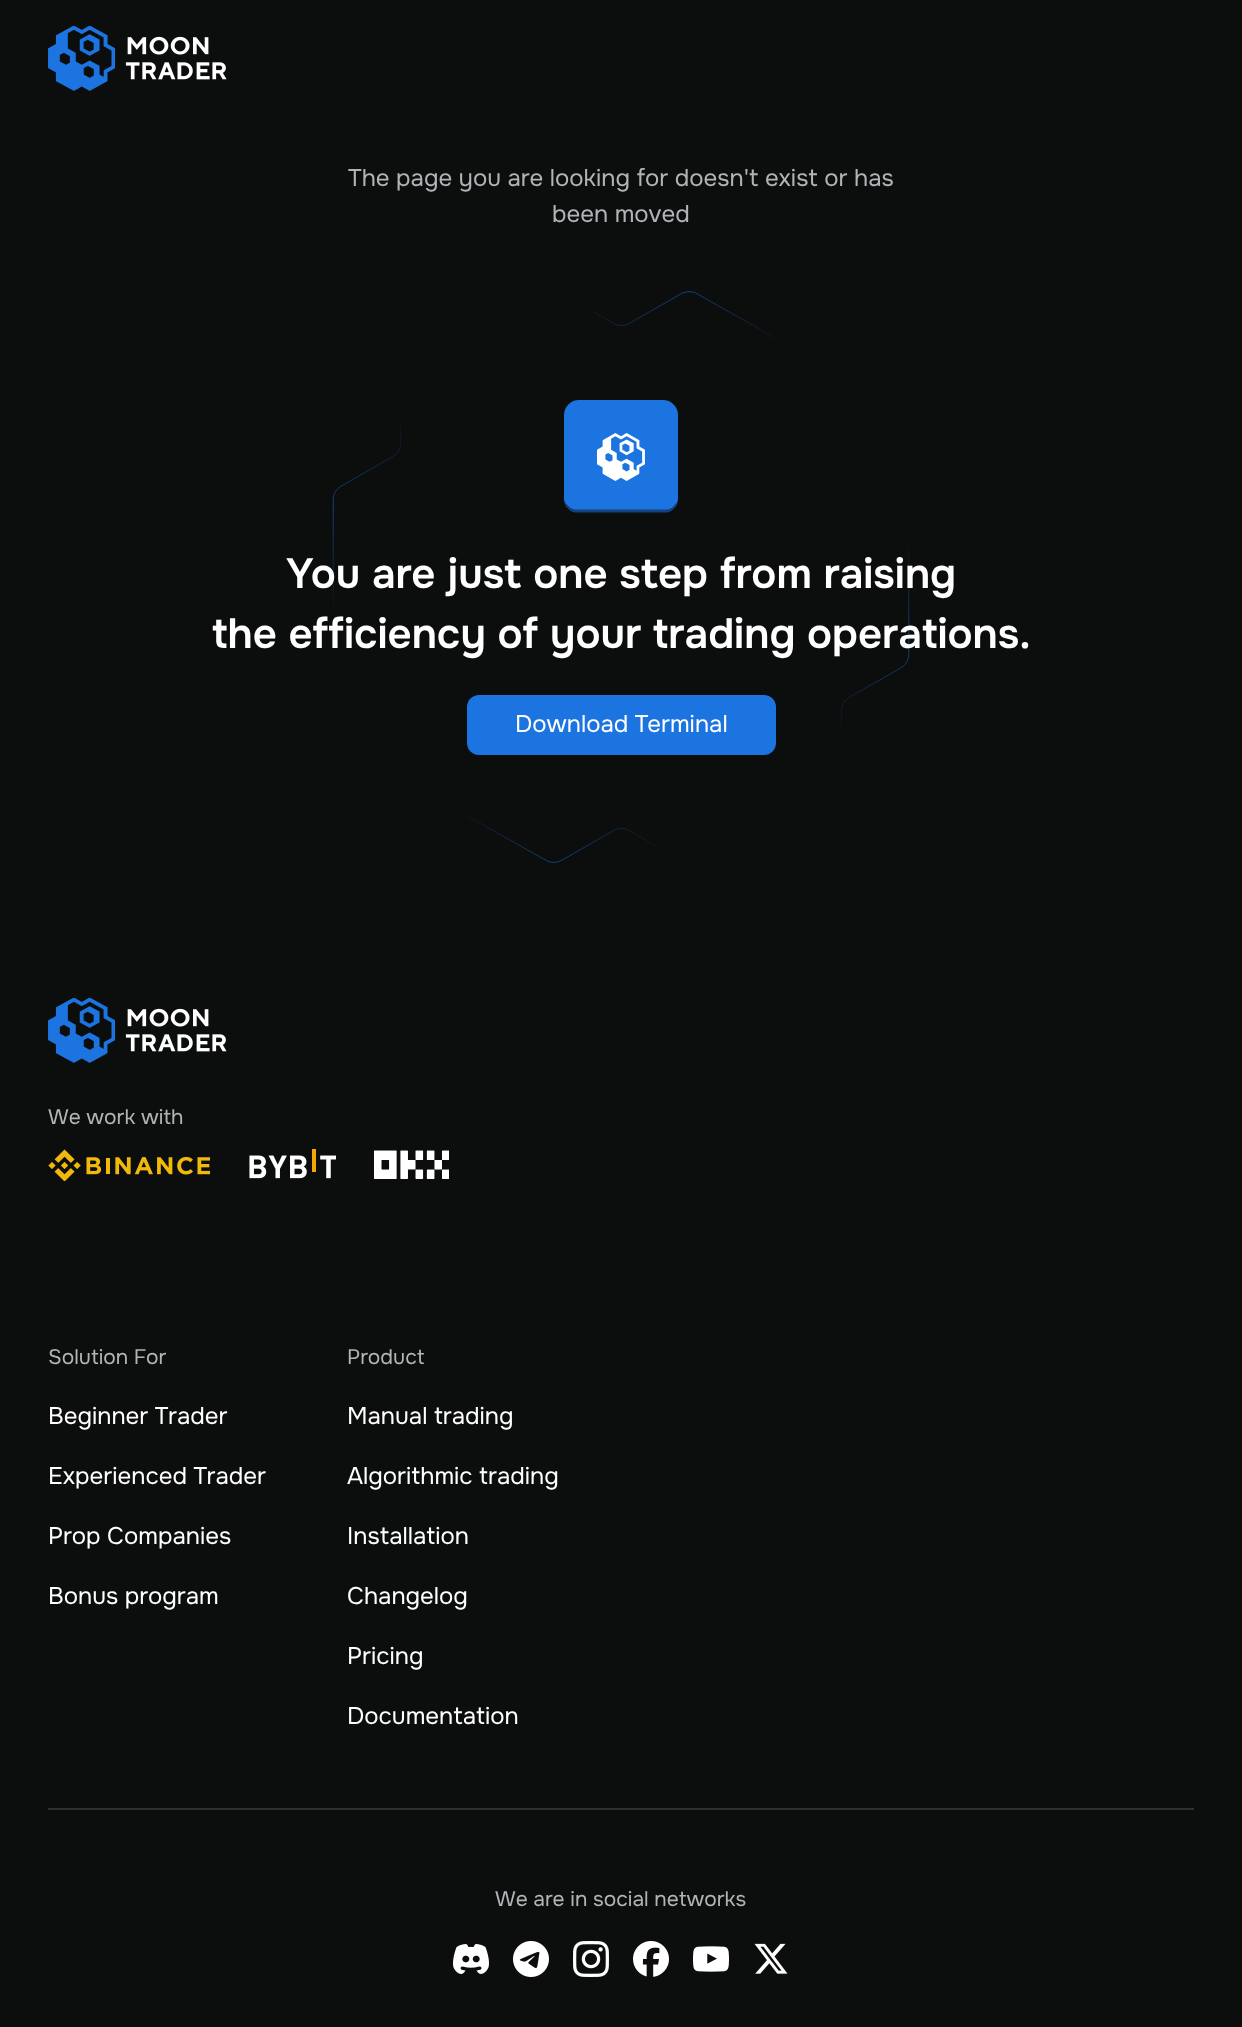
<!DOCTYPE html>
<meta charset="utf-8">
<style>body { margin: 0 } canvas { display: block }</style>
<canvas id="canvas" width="1242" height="2027"></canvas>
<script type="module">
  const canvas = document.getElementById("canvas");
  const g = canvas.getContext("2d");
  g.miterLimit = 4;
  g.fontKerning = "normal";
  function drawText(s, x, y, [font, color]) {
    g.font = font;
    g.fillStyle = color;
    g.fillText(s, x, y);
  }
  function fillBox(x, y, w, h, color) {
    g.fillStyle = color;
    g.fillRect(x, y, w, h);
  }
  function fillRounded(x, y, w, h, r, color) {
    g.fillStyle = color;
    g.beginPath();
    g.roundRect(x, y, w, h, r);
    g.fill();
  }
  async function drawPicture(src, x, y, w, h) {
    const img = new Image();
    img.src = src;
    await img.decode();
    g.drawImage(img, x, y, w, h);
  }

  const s1 = ["24px Onest", "#B1B4B7"];
  const s2 = ["600 42px Onest", "#FFFFFF"];
  const s3 = ["24px Onest", "#FFFFFF"];
  const s4 = ["21px Onest", "#B1B4B7"];

  fillBox(0, 0, 1242, 2027, "#0C0D0D");
  await drawPicture("pic1.png", 48, 26, 179, 65);
  drawText("The page you are looking for doesn't exist or has", 348, 186, s1);
  drawText("been moved", 552, 222, s1);
  await drawPicture("pic2.png", 332, 291, 578, 572);
  await drawPicture("pic3.png", 564, 400, 114, 113);
  drawText("You are just one step from raising", 286, 588, s2);
  drawText("the efficiency of your trading operations.", 212, 648, s2);
  fillRounded(467, 695, 309, 60, 12, "#1B74DF");
  drawText("Download Terminal", 515, 732, s3);
  await drawPicture("pic1.png", 48, 998, 179, 65);
  drawText("We work with", 48, 1124, s4);
  await drawPicture("pic4.png", 48, 1149, 162, 32);
  await drawPicture("pic5.png", 249, 1149, 87, 30);
  await drawPicture("pic6.png", 374, 1150, 75, 29);
  drawText("Solution For", 48, 1364, s4);
  drawText("Beginner Trader", 48, 1424, s3);
  drawText("Experienced Trader", 48, 1484, s3);
  drawText("Prop Companies", 48, 1544, s3);
  drawText("Bonus program", 48, 1604, s3);
  drawText("Product", 347, 1364, s4);
  drawText("Manual trading", 347, 1424, s3);
  drawText("Algorithmic trading", 347, 1484, s3);
  drawText("Installation", 347, 1544, s3);
  drawText("Changelog", 347, 1604, s3);
  drawText("Pricing", 347, 1664, s3);
  drawText("Documentation", 347, 1724, s3);
  fillBox(48, 1808, 1146, 2, "#2C3030");
  drawText("We are in social networks", 495, 1906, s4);
  await drawPicture("pic7.png", 453, 1944, 36, 30);
  await drawPicture("pic8.png", 513, 1941, 36, 36);
  await drawPicture("pic9.png", 573, 1941, 36, 36);
  await drawPicture("pic10.png", 633, 1941, 36, 36);
  await drawPicture("pic11.png", 693, 1946, 36, 26);
  await drawPicture("pic12.png", 754, 1943, 34, 31);
</script>
